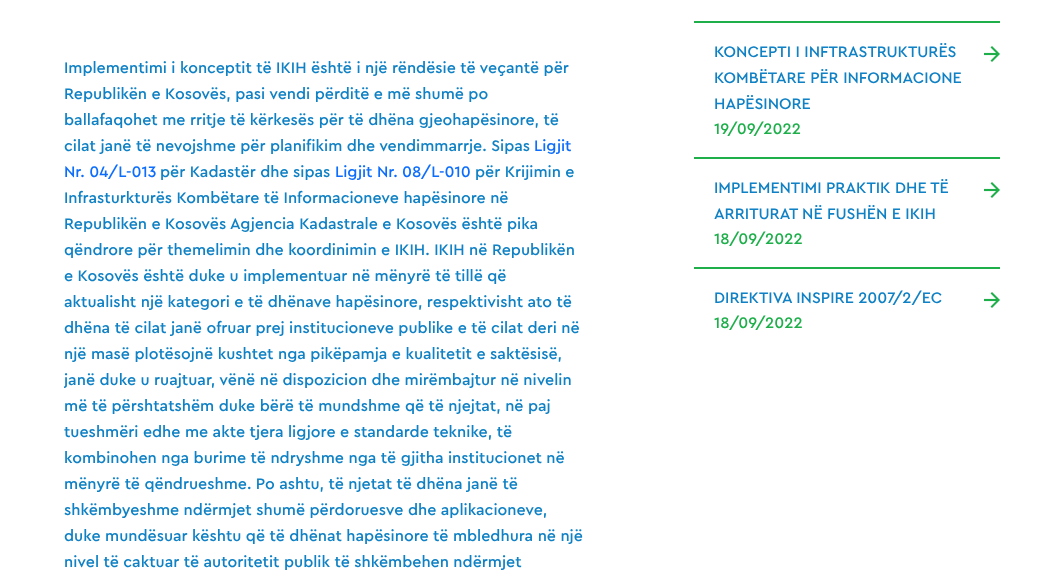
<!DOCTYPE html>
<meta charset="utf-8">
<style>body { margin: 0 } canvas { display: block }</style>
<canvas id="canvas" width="1063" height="583"></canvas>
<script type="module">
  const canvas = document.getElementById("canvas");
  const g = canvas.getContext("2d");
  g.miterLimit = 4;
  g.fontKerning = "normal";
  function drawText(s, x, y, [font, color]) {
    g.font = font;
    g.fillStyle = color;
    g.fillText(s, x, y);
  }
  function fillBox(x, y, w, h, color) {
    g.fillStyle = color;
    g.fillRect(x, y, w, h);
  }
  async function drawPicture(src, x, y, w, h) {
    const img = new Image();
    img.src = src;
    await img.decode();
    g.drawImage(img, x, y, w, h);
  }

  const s1 = ["500 16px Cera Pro", "#0F81C4"];
  const s2 = ["500 16px Cera Pro", "#0D6EFD"];
  const s3 = ["500 16px Cera Pro", "#1EAF4B"];

  fillBox(0, 0, 1063, 583, "#FFFFFF");
  drawText("Implementimi i konceptit të IKIH është i një rëndësie të veçantë për", 64, 73, s1);
  drawText("Republikën e Kosovës, pasi vendi përditë e më shumë po", 64, 99, s1);
  drawText("ballafaqohet me rritje të kërkesës për të dhëna gjeohapësinore, të", 64, 125, s1);
  drawText("cilat janë të nevojshme për planifikim dhe vendimmarrje. Sipas", 64, 151, s1);
  drawText("Ligjit", 534, 151, s2);
  drawText("Nr. 04/L-013", 64, 177, s2);
  drawText("për Kadastër dhe sipas", 160, 177, s1);
  drawText("Ligjit Nr. 08/L-010", 335, 177, s2);
  drawText("për Krijimin e", 475, 177, s1);
  drawText("Infrasturkturës Kombëtare të Informacioneve hapësinore në", 64, 203, s1);
  drawText("Republikën e Kosovës Agjencia Kadastrale e Kosovës është pika", 64, 229, s1);
  drawText("qëndrore për themelimin dhe koordinimin e IKIH. IKIH në Republikën", 64, 255, s1);
  drawText("e Kosovës është duke u implementuar në mënyrë të tillë që", 64, 281, s1);
  drawText("aktualisht një kategori e të dhënave hapësinore, respektivisht ato të", 64, 307, s1);
  drawText("dhëna të cilat janë ofruar prej institucioneve publike e të cilat deri në", 64, 333, s1);
  drawText("një masë plotësojnë kushtet nga pikëpamja e kualitetit e saktësisë,", 64, 359, s1);
  g.save();
  g.beginPath();
  g.rect(64, 0, 610, 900);
  g.clip();
  drawText("janë duke u ruajtuar, vënë në dispozicion dhe mirëmbajtur në nivelin", 64, 385, s1);
  g.restore();
  drawText("më të përshtatshëm duke bërë të mundshme që të njejtat, në paj", 64, 411, s1);
  drawText("tueshmëri edhe me akte tjera ligjore e standarde teknike, të", 64, 437, s1);
  drawText("kombinohen nga burime të ndryshme nga të gjitha institucionet në", 64, 463, s1);
  drawText("mënyrë të qëndrueshme. Po ashtu, të njetat të dhëna janë të", 64, 489, s1);
  drawText("shkëmbyeshme ndërmjet shumë përdoruesve dhe aplikacioneve,", 64, 515, s1);
  drawText("duke mundësuar kështu që të dhënat hapësinore të mbledhura në një", 64, 541, s1);
  drawText("nivel të caktuar të autoritetit publik të shkëmbehen ndërmjet", 64, 567, s1);
  fillBox(694, 21, 306, 2, "#1EAF4B");
  drawText("KONCEPTI I INFTRASTRUKTURËS", 714, 57, s1);
  drawText("KOMBËTARE PËR INFORMACIONE", 714, 83, s1);
  drawText("HAPËSINORE", 714, 109, s1);
  drawText("19/09/2022", 714, 134, s3);
  await drawPicture("pic1.png", 984, 46, 16, 16);
  fillBox(694, 157, 306, 2, "#1EAF4B");
  drawText("IMPLEMENTIMI PRAKTIK DHE TË", 714, 193, s1);
  drawText("ARRITURAT NË FUSHËN E IKIH", 714, 219, s1);
  drawText("18/09/2022", 714, 244, s3);
  await drawPicture("pic1.png", 984, 182, 16, 16);
  fillBox(694, 267, 306, 2, "#1EAF4B");
  drawText("DIREKTIVA INSPIRE 2007/2/EC", 714, 303, s1);
  drawText("18/09/2022", 714, 328, s3);
  await drawPicture("pic1.png", 984, 292, 16, 16);
</script>
